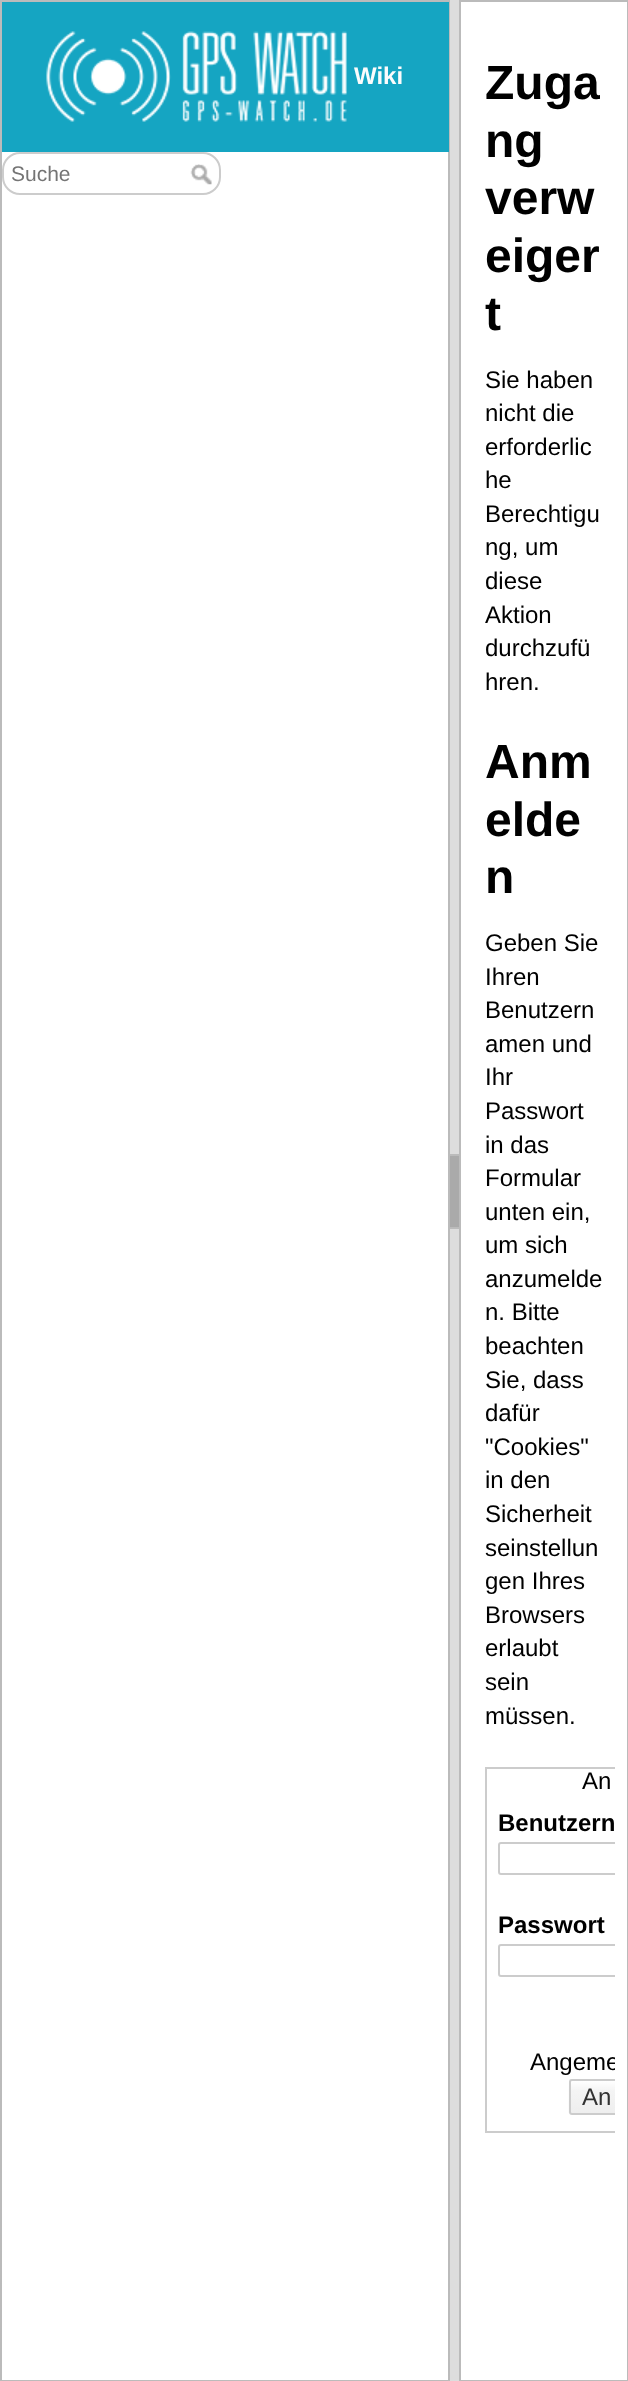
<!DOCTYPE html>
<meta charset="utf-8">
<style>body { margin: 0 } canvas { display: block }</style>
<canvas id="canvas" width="628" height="2381"></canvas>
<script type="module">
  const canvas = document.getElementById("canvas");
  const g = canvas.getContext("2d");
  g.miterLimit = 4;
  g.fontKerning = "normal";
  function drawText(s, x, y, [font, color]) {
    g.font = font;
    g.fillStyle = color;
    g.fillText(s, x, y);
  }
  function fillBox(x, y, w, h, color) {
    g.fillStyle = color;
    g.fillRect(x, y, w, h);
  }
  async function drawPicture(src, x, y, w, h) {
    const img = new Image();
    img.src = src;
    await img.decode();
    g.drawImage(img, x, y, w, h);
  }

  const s1 = ["bold 24px Liberation Sans", "#FCFCFC"];
  const s2 = ["21px Liberation Sans", "#757575"];
  const s3 = ["bold 48px Liberation Sans", "#000000"];
  const s4 = ["24px Liberation Sans", "#000000"];
  const s5 = ["bold 24px Liberation Sans", "#000000"];
  const s6 = ["24px Liberation Sans", "#333333"];

  fillBox(0, 0, 628, 2381, "#FFFFFF");
  g.strokeStyle = "#BBBBBB";
  g.lineWidth = 2;
  g.strokeRect(1, 1, 448, 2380);
  fillBox(2, 2, 447, 150, "#15A5C2");
  await drawPicture("pic1.png", 46, 31, 301, 91);
  drawText("Wiki", 354, 84, s1);
  g.beginPath();
  g.roundRect(3, 153, 217, 41, 17);
  g.strokeStyle = "#CCCCCC";
  g.stroke();
  drawText("Suche", 11, 181, s2);
  await drawPicture("pic2.png", 190, 164, 22, 21);
  fillBox(450, 0, 9, 2381, "#DDDDDD");
  fillBox(450, 1156, 9, 71, "#AAAAAA");
  fillBox(450, 1154, 9, 2, "#BBBBBB");
  fillBox(450, 1227, 9, 2, "#BBBBBB");
  g.strokeStyle = "#BBBBBB";
  g.strokeRect(460, 1, 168, 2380);
  drawText("Zuga", 485, 99, s3);
  drawText("ng", 485, 157, s3);
  drawText("verw", 485, 214, s3);
  drawText("eiger", 485, 272, s3);
  drawText("t", 485, 330, s3);
  drawText("Sie haben", 485, 388, s4);
  drawText("nicht die", 485, 421, s4);
  drawText("erforderlic", 485, 455, s4);
  drawText("he", 485, 488, s4);
  drawText("Berechtigu", 485, 522, s4);
  drawText("ng, um", 485, 555, s4);
  drawText("diese", 485, 589, s4);
  drawText("Aktion", 485, 623, s4);
  drawText("durchzufü", 485, 656, s4);
  drawText("hren.", 485, 690, s4);
  drawText("Anm", 485, 778, s3);
  drawText("elde", 485, 836, s3);
  drawText("n", 485, 893, s3);
  drawText("Geben Sie", 485, 951, s4);
  drawText("Ihren", 485, 985, s4);
  drawText("Benutzern", 485, 1018, s4);
  drawText("amen und", 485, 1052, s4);
  drawText("Ihr", 485, 1085, s4);
  drawText("Passwort", 485, 1119, s4);
  drawText("in das", 485, 1153, s4);
  drawText("Formular", 485, 1186, s4);
  drawText("unten ein,", 485, 1220, s4);
  drawText("um sich", 485, 1253, s4);
  drawText("anzumelde", 485, 1287, s4);
  drawText("n. Bitte", 485, 1320, s4);
  drawText("beachten", 485, 1354, s4);
  drawText("Sie, dass", 485, 1388, s4);
  drawText("dafür", 485, 1421, s4);
  drawText("\"Cookies\"", 485, 1455, s4);
  drawText("in den", 485, 1488, s4);
  drawText("Sicherheit", 485, 1522, s4);
  drawText("seinstellun", 485, 1556, s4);
  drawText("gen Ihres", 485, 1589, s4);
  drawText("Browsers", 485, 1623, s4);
  drawText("erlaubt", 485, 1656, s4);
  drawText("sein", 485, 1690, s4);
  drawText("müssen.", 485, 1724, s4);
  g.save();
  g.beginPath();
  g.rect(473, 42, 142, 2103);
  g.clip();
  g.strokeStyle = "#CCCCCC";
  g.strokeRect(486, 1768, 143, 364);
  g.restore();
  drawText("An", 582, 1789, s4);
  drawText("Benutzern", 498, 1831, s5);
  g.save();
  g.beginPath();
  g.rect(473, 42, 142, 2103);
  g.clip();
  g.beginPath();
  g.roundRect(499, 1843, 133, 31, 2);
  g.strokeStyle = "#CCCCCC";
  g.stroke();
  g.restore();
  drawText("Passwort", 498, 1933, s5);
  g.save();
  g.beginPath();
  g.rect(473, 42, 142, 2103);
  g.clip();
  g.beginPath();
  g.roundRect(499, 1945, 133, 31, 2);
  g.strokeStyle = "#CCCCCC";
  g.stroke();
  drawText("Angeme", 530, 2070, s4);
  g.restore();
  await drawPicture("pic3.png", 568, 2079, 47, 36);
  g.save();
  g.beginPath();
  g.rect(473, 42, 142, 2103);
  g.clip();
  g.beginPath();
  g.roundRect(570, 2080, 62, 34, 2);
  g.strokeStyle = "#CCCCCC";
  g.stroke();
  g.restore();
  drawText("An", 582, 2105, s6);
</script>
